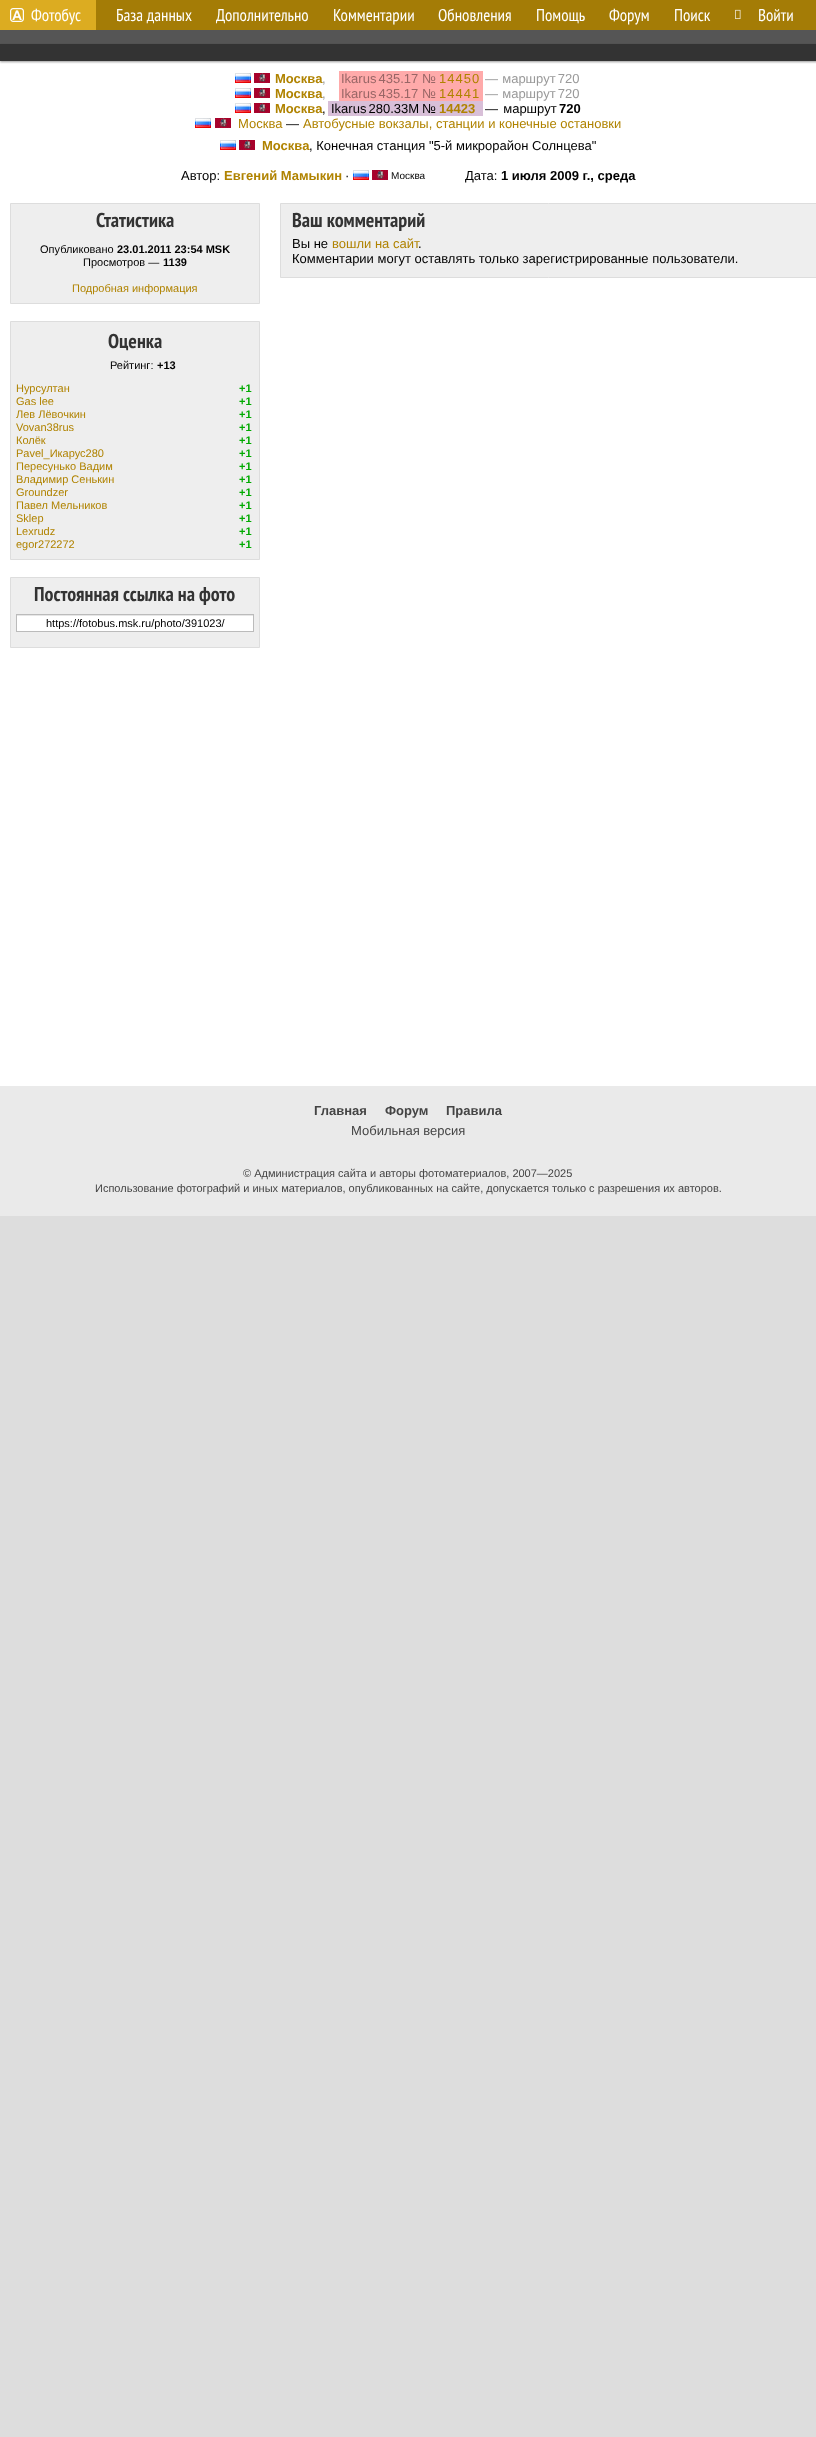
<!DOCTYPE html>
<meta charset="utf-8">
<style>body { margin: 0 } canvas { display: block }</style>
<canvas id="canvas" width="816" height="2437"></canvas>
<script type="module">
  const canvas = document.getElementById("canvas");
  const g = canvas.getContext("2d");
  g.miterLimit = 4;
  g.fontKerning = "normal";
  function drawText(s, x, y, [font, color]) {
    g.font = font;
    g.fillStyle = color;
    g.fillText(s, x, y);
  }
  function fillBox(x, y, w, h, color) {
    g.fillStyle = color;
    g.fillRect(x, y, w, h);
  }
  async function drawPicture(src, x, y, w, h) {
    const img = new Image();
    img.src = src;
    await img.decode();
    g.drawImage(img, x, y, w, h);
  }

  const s1 = ["17px PT Sans Narrow", "#FFFFFF"];
  const s2 = ["bold 13px Liberation Sans", "#B08300"];
  const s3 = ["13px Liberation Sans", "#999999"];
  const s4 = ["13px Liberation Sans", "#996666"];
  const s5 = ["13px Liberation Sans", "#B08300"];
  const s6 = ["13px Liberation Sans", "#000000"];
  const s7 = ["bold 13px Liberation Sans", "#000000"];
  const s8 = ["10px Liberation Sans", "#000000"];
  const s9 = ["bold 20px PT Sans Narrow", "#333333"];
  const s10 = ["11px Liberation Sans", "#000000"];
  const s11 = ["bold 11px Liberation Sans", "#000000"];
  const s12 = ["11px Liberation Sans", "#B08300"];
  const s13 = ["bold 11px Liberation Sans", "#00AA00"];
  const s14 = ["bold 13px Liberation Sans", "#444444"];
  const s15 = ["13px Liberation Sans", "#444444"];
  const s16 = ["11px Liberation Sans", "#444444"];

  fillBox(0, 0, 816, 2437, "#DDDDDD");
  fillBox(96, 0, 720, 30, "#A47C06");
  fillBox(0, 0, 96, 30, "#DCAC21");
  await drawPicture("pic1.png", 10, 8, 14, 14);
  drawText("Фотобус", 31, 21, s1);
  drawText("База данных", 116, 21, s1);
  drawText("Дополнительно", 216, 21, s1);
  drawText("Комментарии", 333, 21, s1);
  drawText("Обновления", 438, 21, s1);
  drawText("Помощь", 536, 21, s1);
  drawText("Форум", 609, 21, s1);
  drawText("Поиск", 674, 21, s1);
  await drawPicture("pic2.png", 735, 9, 6, 10);
  drawText("Войти", 758, 21, s1);
  fillBox(0, 30, 816, 14, "#555555");
  fillBox(0, 61, 816, 1025, "#FFFFFF");
  g.fillStyle = "rgba(0, 0, 0, 0.4)";
  g.filter = "blur(1px)";
  g.beginPath();
  g.rect(0, 45, 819, 17);
  g.fill();
  g.filter = "none";
  fillBox(0, 44, 816, 17, "#333333");
  await drawPicture("pic3.png", 235, 73, 16, 10);
  await drawPicture("pic4.png", 254, 73, 16, 10);
  drawText("Москва", 275, 83, s2);
  drawText(",", 322, 83, s3);
  fillBox(339, 71, 81, 30, "#FFAAAA");
  g.wordSpacing = "-1.5px";
  drawText("Ikarus 435.17", 341, 83, s4);
  fillBox(420, 71, 63, 30, "#FFAAAA");
  g.wordSpacing = "0px";
  drawText("№", 422, 83, s4);
  g.letterSpacing = "1px";
  drawText("14450", 439, 83, s5);
  g.letterSpacing = "0px";
  g.wordSpacing = "-1.5px";
  drawText("—  маршрут 720", 485, 83, s3);
  await drawPicture("pic3.png", 235, 88, 16, 10);
  await drawPicture("pic4.png", 254, 88, 16, 10);
  g.wordSpacing = "0px";
  drawText("Москва", 275, 98, s2);
  drawText(",", 322, 98, s3);
  g.wordSpacing = "-1.5px";
  drawText("Ikarus 435.17", 341, 98, s4);
  g.wordSpacing = "0px";
  drawText("№", 422, 98, s4);
  g.letterSpacing = "1px";
  drawText("14441", 439, 98, s5);
  g.letterSpacing = "0px";
  g.wordSpacing = "-1.5px";
  drawText("—  маршрут 720", 485, 98, s3);
  await drawPicture("pic3.png", 235, 103, 16, 10);
  await drawPicture("pic4.png", 254, 103, 16, 10);
  g.wordSpacing = "0px";
  drawText("Москва", 275, 113, s2);
  drawText(",", 322, 113, s6);
  fillBox(328, 101, 155, 15, "#D8BFD8");
  g.wordSpacing = "-1.5px";
  drawText("Ikarus 280.33M", 331, 113, s6);
  g.wordSpacing = "0px";
  drawText("№", 422, 113, s6);
  drawText("14423", 439, 113, s2);
  g.wordSpacing = "-1px";
  drawText("—  маршрут", 485, 113, s6);
  g.wordSpacing = "0px";
  drawText("720", 559, 113, s7);
  await drawPicture("pic3.png", 195, 118, 16, 10);
  await drawPicture("pic4.png", 215, 118, 16, 10);
  drawText("Москва", 238, 128, s5);
  drawText("—", 286, 128, s6);
  drawText("Автобусные вокзалы, станции и конечные остановки", 303, 128, s5);
  await drawPicture("pic3.png", 220, 140, 16, 10);
  await drawPicture("pic4.png", 239, 140, 16, 10);
  drawText("Москва", 262, 150, s2);
  drawText(", Конечная станция \"5-й микрорайон Солнцева\"", 309, 150, s6);
  drawText("Автор:", 181, 180, s6);
  drawText("Евгений Мамыкин", 224, 180, s2);
  drawText("·", 345, 180, s6);
  await drawPicture("pic3.png", 353, 170, 16, 10);
  await drawPicture("pic4.png", 372, 170, 16, 10);
  drawText("Москва", 391, 179, s8);
  drawText("Дата:", 465, 180, s6);
  drawText("1 июля 2009 г., среда", 501, 180, s7);
  g.fillStyle = "#EEEEEE";
  g.beginPath();
  g.rect(10.5, 203.5, 249, 100);
  g.fill();
  g.strokeStyle = "#DDDDDD";
  g.stroke();
  drawText("Статистика", 96, 227, s9);
  drawText("Опубликовано", 40, 253, s10);
  drawText("23.01.2011 23:54 MSK", 117, 253, s11);
  drawText("Просмотров —", 83, 266, s10);
  drawText("1139", 163, 266, s11);
  drawText("Подробная информация", 72, 292, s12);
  g.fillStyle = "#EEEEEE";
  g.beginPath();
  g.rect(10.5, 321.5, 249, 238);
  g.fill();
  g.stroke();
  drawText("Оценка", 108, 348, s9);
  drawText("Рейтинг:", 110, 369, s10);
  drawText("+13", 157, 369, s11);
  drawText("Нурсултан", 16, 392, s12);
  drawText("+1", 239, 392, s13);
  drawText("Gas lee", 16, 405, s12);
  drawText("+1", 239, 405, s13);
  drawText("Лев Лёвочкин", 16, 418, s12);
  drawText("+1", 239, 418, s13);
  drawText("Vovan38rus", 16, 431, s12);
  drawText("+1", 239, 431, s13);
  drawText("Колёк", 16, 444, s12);
  drawText("+1", 239, 444, s13);
  drawText("Pavel_Икарус280", 16, 457, s12);
  drawText("+1", 239, 457, s13);
  drawText("Пересунько Вадим", 16, 470, s12);
  drawText("+1", 239, 470, s13);
  drawText("Владимир Сенькин", 16, 483, s12);
  drawText("+1", 239, 483, s13);
  drawText("Groundzer", 16, 496, s12);
  drawText("+1", 239, 496, s13);
  drawText("Павел Мельников", 16, 509, s12);
  drawText("+1", 239, 509, s13);
  drawText("Sklep", 16, 522, s12);
  drawText("+1", 239, 522, s13);
  drawText("Lexrudz", 16, 535, s12);
  drawText("+1", 239, 535, s13);
  drawText("egor272272", 16, 548, s12);
  drawText("+1", 239, 548, s13);
  g.fillStyle = "#EEEEEE";
  g.beginPath();
  g.rect(10.5, 577.5, 249, 70);
  g.fill();
  g.stroke();
  drawText("Постоянная ссылка на фото", 34, 601, s9);
  fillBox(17, 616, 236, 15, "#FFFFFF");
  fillBox(17, 615, 236, 1, "#E6E6E6");
  g.strokeStyle = "#BBBBBB";
  g.strokeRect(16.5, 614.5, 237, 17);
  g.save();
  g.beginPath();
  g.rect(20, 617, 230, 12);
  g.clip();
  drawText("https://fotobus.msk.ru/photo/391023/", 46, 627, s10);
  g.restore();
  g.fillStyle = "#EEEEEE";
  g.beginPath();
  g.rect(280.5, 203.5, 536, 74);
  g.fill();
  g.strokeStyle = "#DDDDDD";
  g.stroke();
  drawText("Ваш комментарий", 292, 227, s9);
  drawText("Вы не", 292, 248, s6);
  drawText("вошли на сайт", 332, 248, s5);
  drawText(".", 418, 248, s6);
  drawText("Комментарии могут оставлять только зарегистрированные пользователи.", 292, 263, s6);
  fillBox(0, 1086, 816, 130, "#EAEAEA");
  drawText("Главная", 314, 1115, s14);
  drawText("Форум", 385, 1115, s14);
  drawText("Правила", 446, 1115, s14);
  drawText("Мобильная версия", 351, 1135, s15);
  drawText("© Администрация сайта и авторы фотоматериалов, 2007—2025", 243, 1177, s16);
  drawText("Использование фотографий и иных материалов, опубликованных на сайте, допускается только с разрешения их авторов.", 95, 1192, s16);
</script>
